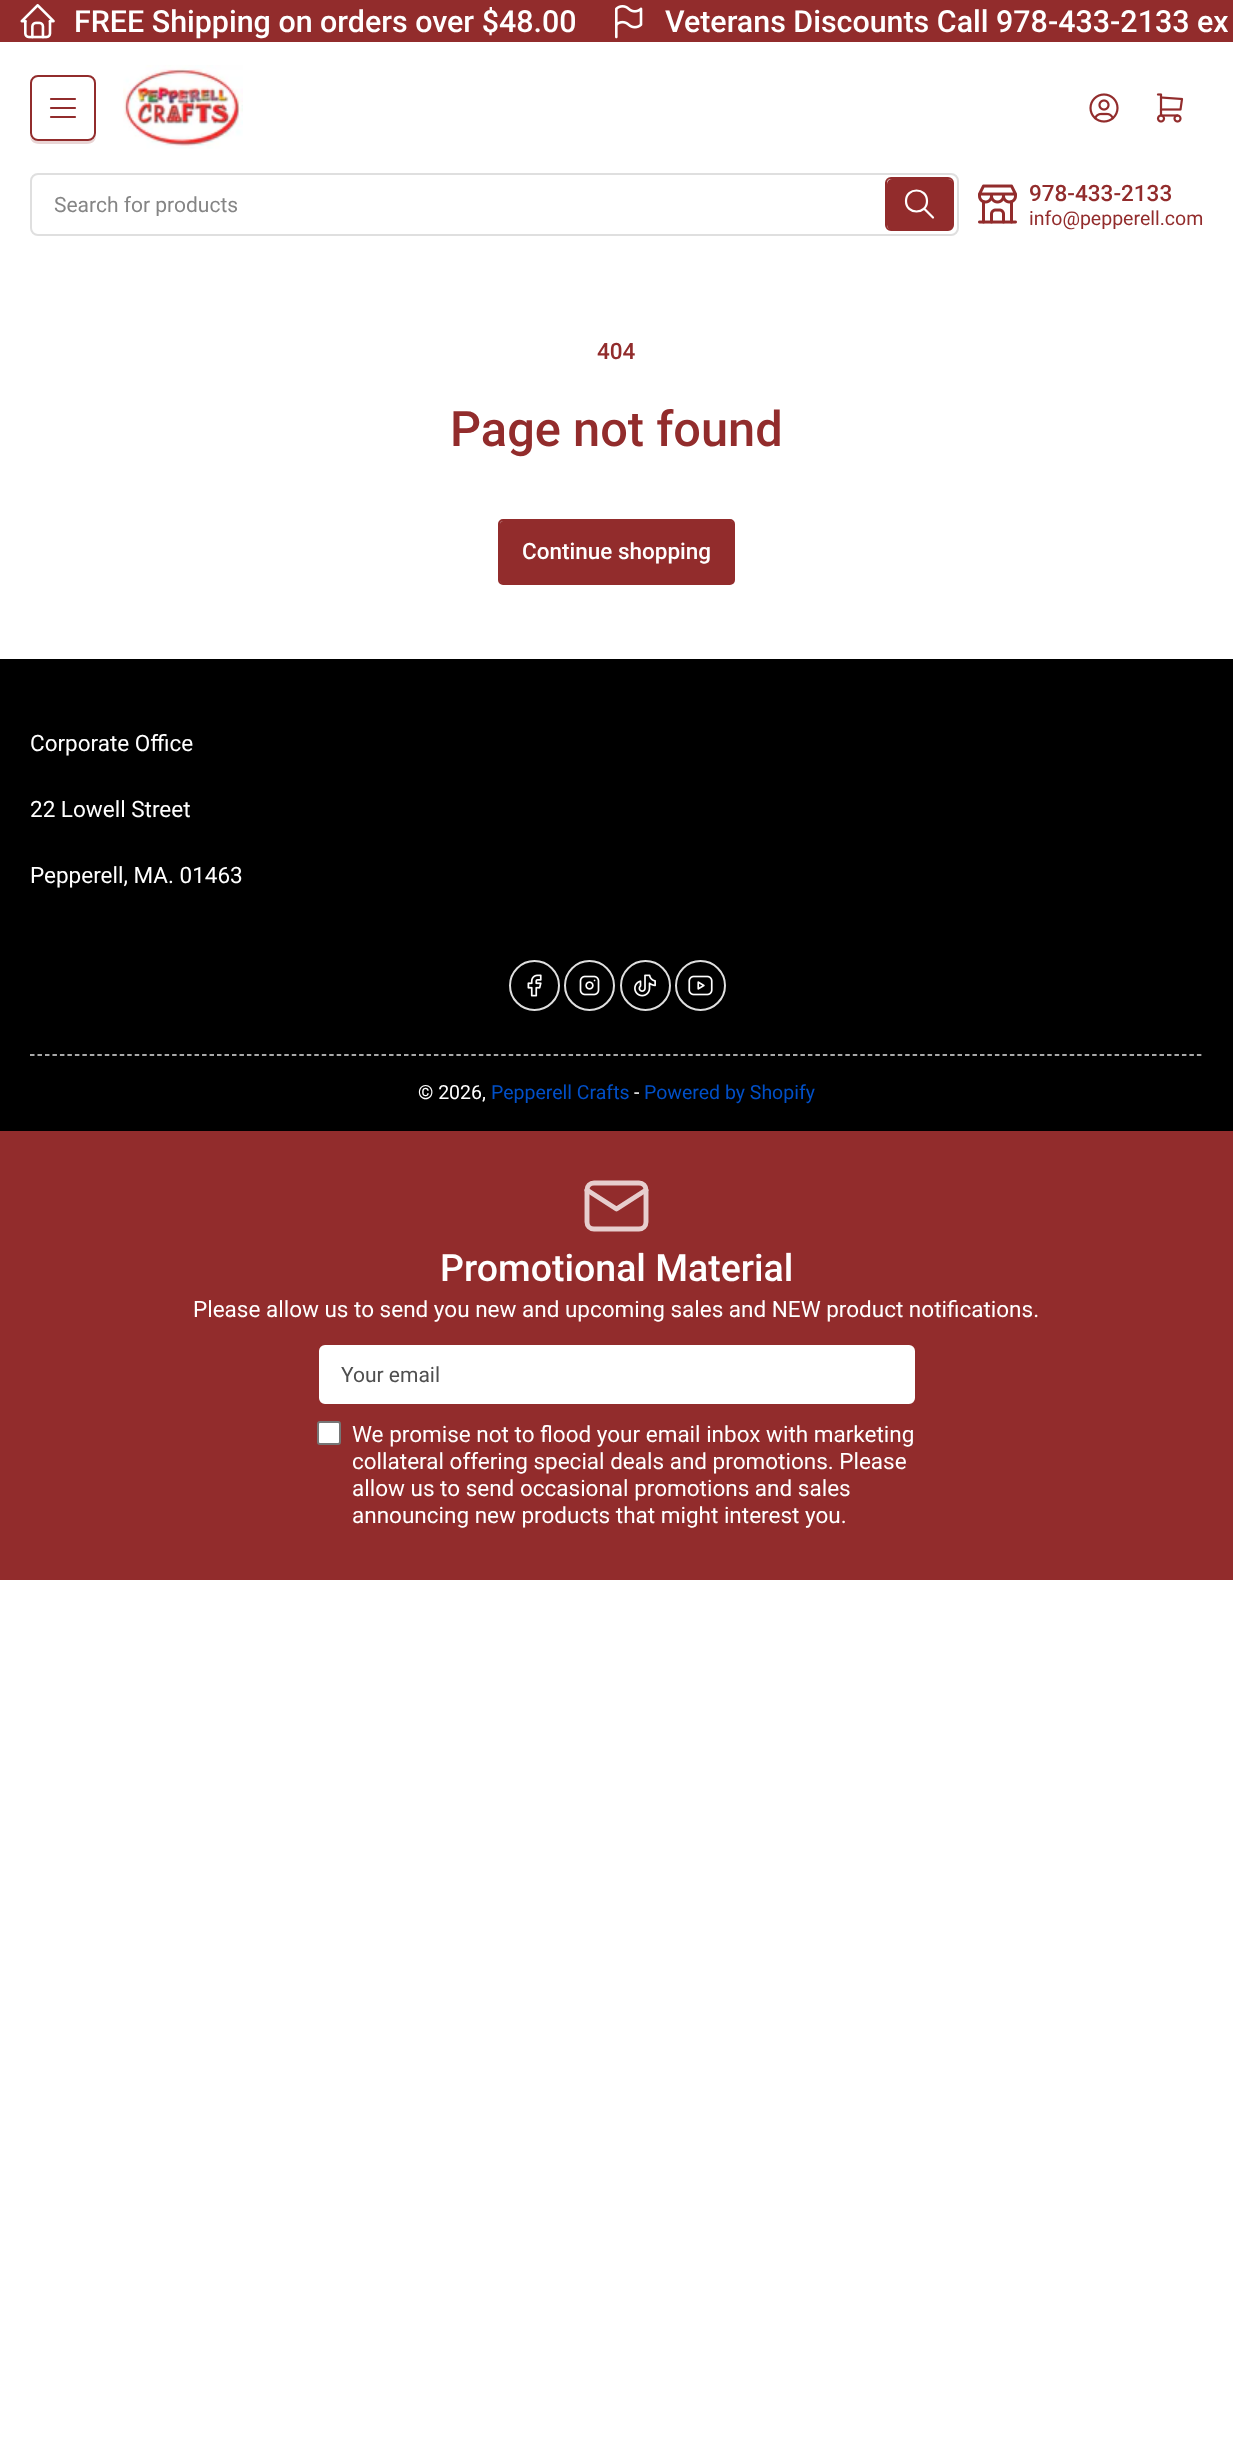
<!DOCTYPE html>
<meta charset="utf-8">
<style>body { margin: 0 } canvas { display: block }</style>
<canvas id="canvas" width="1233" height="2437"></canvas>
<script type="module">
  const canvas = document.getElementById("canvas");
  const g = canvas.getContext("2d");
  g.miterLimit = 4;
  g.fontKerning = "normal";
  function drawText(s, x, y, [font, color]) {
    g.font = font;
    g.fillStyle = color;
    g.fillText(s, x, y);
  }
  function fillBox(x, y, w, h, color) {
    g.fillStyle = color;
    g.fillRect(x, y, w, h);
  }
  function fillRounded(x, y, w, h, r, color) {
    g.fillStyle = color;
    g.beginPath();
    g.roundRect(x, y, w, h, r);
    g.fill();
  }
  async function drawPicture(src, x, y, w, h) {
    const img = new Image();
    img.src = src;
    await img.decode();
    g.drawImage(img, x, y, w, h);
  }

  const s1 = ["500 30.4px Roboto", "#FFFFFF"];
  const s2 = ["21px Roboto", "#858585"];
  const s3 = ["500 22.5px Roboto", "#922C2C"];
  const s4 = ["19.5px Roboto", "#922C2C"];
  const s5 = ["500 48.75px Roboto", "#922C2C"];
  const s6 = ["500 22.5px Roboto", "#FFFFFF"];
  const s7 = ["22.5px Roboto", "#FFFFFF"];
  const s8 = ["19.5px Roboto", "#FFFFFF"];
  const s9 = ["19.5px Roboto", "#004FC7"];
  const s10 = ["500 37.5px Roboto", "#FFFFFF"];
  const s11 = ["21px Roboto", "#4F4F4F"];

  fillBox(0, 0, 1233, 2437, "#FFFFFF");
  fillBox(0, 0, 1233, 42, "#922C2C");
  await drawPicture("pic1.png", 20, 4, 35, 35);
  drawText("FREE Shipping on orders over $48.00", 74, 32, s1);
  await drawPicture("pic2.png", 615, 5, 28, 34);
  drawText("Veterans Discounts Call 978-433-2133 ex", 665, 32, s1);
  g.fillStyle = "#E9D5D5";
  g.beginPath();
  g.moveTo(30, 134);
  g.bezierCurveTo(30, 145, 37, 144, 46, 144);
  g.lineTo(80, 144);
  g.bezierCurveTo(89, 144, 96, 145, 96, 134);
  g.bezierCurveTo(96, 138, 93, 141, 88, 141);
  g.lineTo(38, 141);
  g.bezierCurveTo(33, 141, 30, 138, 30, 134);
  g.closePath();
  g.fill();
  g.beginPath();
  g.roundRect(31, 76, 64, 64, 7);
  g.strokeStyle = "#922C2C";
  g.lineWidth = 2;
  g.stroke();
  g.beginPath();
  g.moveTo(51, 99);
  g.lineTo(75, 99);
  g.moveTo(51, 108);
  g.lineTo(75, 108);
  g.moveTo(51, 117);
  g.lineTo(75, 117);
  g.lineWidth = 2.2;
  g.lineCap = "round";
  g.lineJoin = "round";
  g.stroke();
  await drawPicture("pic3.png", 123, 65, 120, 84);
  await drawPicture("pic4.png", 1089, 93, 30, 30);
  await drawPicture("pic5.png", 1156, 93, 28, 30);
  g.beginPath();
  g.roundRect(31, 174, 927, 61, 7);
  g.strokeStyle = "#DFDFDF";
  g.lineWidth = 2;
  g.lineJoin = "miter";
  g.stroke();
  g.save();
  g.beginPath();
  g.rect(54, 192, 881, 24);
  g.clip();
  drawText("Search for products", 54, 212, s2);
  g.restore();
  g.beginPath();
  g.roundRect(886, 178, 67, 52, 5);
  g.strokeStyle = "#922C2C";
  g.stroke();
  fillRounded(887, 179, 66, 51, 5, "#922C2C");
  g.beginPath();
  g.moveTo(906, 201);
  g.bezierCurveTo(906, 215, 927, 215, 927, 201);
  g.bezierCurveTo(927, 187, 906, 187, 906, 201);
  g.moveTo(933, 217.5);
  g.lineTo(924, 208.5);
  g.strokeStyle = "#FFFFFF";
  g.lineWidth = 2.2;
  g.lineJoin = "round";
  g.stroke();
  await drawPicture("pic6.png", 978, 184, 39, 40);
  drawText("978-433-2133", 1029, 201, s3);
  drawText("info@pepperell.com", 1029, 225, s4);
  drawText("404", 597, 359, s3);
  drawText("Page not found", 450, 446, s5);
  g.beginPath();
  g.roundRect(499, 520, 235, 64, 4);
  g.strokeStyle = "#922C2C";
  g.lineWidth = 2;
  g.lineJoin = "miter";
  g.stroke();
  fillRounded(500, 521, 234, 63, 3, "#922C2C");
  drawText("Continue shopping", 522, 559, s6);
  fillBox(0, 659, 1233, 472, "#000000");
  drawText("Corporate Office", 30, 751, s7);
  drawText("22 Lowell Street", 30, 817, s7);
  drawText("Pepperell, MA. 01463", 30, 883, s7);
  g.beginPath();
  g.arc(534.5, 985.5, 24.5, 0, Math.PI * 2);
  g.strokeStyle = "#DFDFDF";
  g.stroke();
  await drawPicture("pic7.png", 527, 974, 15, 23);
  g.beginPath();
  g.arc(589.5, 985.5, 24.5, 0, Math.PI * 2);
  g.stroke();
  await drawPicture("pic8.png", 579, 975, 21, 21);
  g.beginPath();
  g.arc(645.5, 985.5, 24.5, 0, Math.PI * 2);
  g.stroke();
  await drawPicture("pic9.png", 634, 974, 22, 23);
  g.beginPath();
  g.arc(700.5, 985.5, 24.5, 0, Math.PI * 2);
  g.stroke();
  await drawPicture("pic10.png", 688, 975, 25, 21);
  g.beginPath();
  g.moveTo(30, 1055);
  g.lineTo(1203, 1055);
  g.lineWidth = 1.5;
  g.lineCap = "butt";
  g.setLineDash([4.5, 2.98]);
  g.stroke();
  drawText("© 2026,", 418, 1099, s8);
  drawText("Pepperell Crafts", 491, 1099, s9);
  drawText("-", 634, 1099, s8);
  drawText("Powered by Shopify", 644, 1099, s9);
  fillBox(0, 1131, 1233, 449, "#922C2C");
  g.beginPath();
  g.moveTo(587, 1190);
  g.bezierCurveTo(587, 1186, 590, 1183, 594, 1183);
  g.lineTo(639, 1183);
  g.bezierCurveTo(643, 1183, 646, 1186, 646, 1190);
  g.lineTo(646, 1222);
  g.bezierCurveTo(646, 1226, 643, 1229, 639, 1229);
  g.lineTo(594, 1229);
  g.bezierCurveTo(590, 1229, 587, 1226, 587, 1222);
  g.closePath();
  g.strokeStyle = "#E7CECE";
  g.lineWidth = 4.9;
  g.lineCap = "round";
  g.lineJoin = "round";
  g.setLineDash([]);
  g.stroke();
  g.beginPath();
  g.moveTo(587, 1190);
  g.lineTo(616.5, 1209);
  g.lineTo(646, 1190);
  g.stroke();
  drawText("Promotional Material", 440, 1281, s10);
  drawText("Please allow us to send you new and upcoming sales and NEW product notifications.", 193, 1317, s7);
  g.beginPath();
  g.roundRect(318, 1344, 598, 61, 7);
  g.fill();
  g.strokeStyle = "#922C2C";
  g.lineWidth = 2;
  g.lineJoin = "miter";
  g.stroke();
  drawText("Your email", 341, 1382, s11);
  g.fillStyle = "#FFFFFF";
  g.beginPath();
  g.roundRect(318, 1422, 22, 22, 2);
  g.fill();
  g.strokeStyle = "#767676";
  g.stroke();
  drawText("We promise not to flood your email inbox with marketing", 352, 1442, s7);
  drawText("collateral offering special deals and promotions. Please", 352, 1469, s7);
  drawText("allow us to send occasional promotions and sales", 352, 1496, s7);
  drawText("announcing new products that might interest you.", 352, 1523, s7);
</script>
